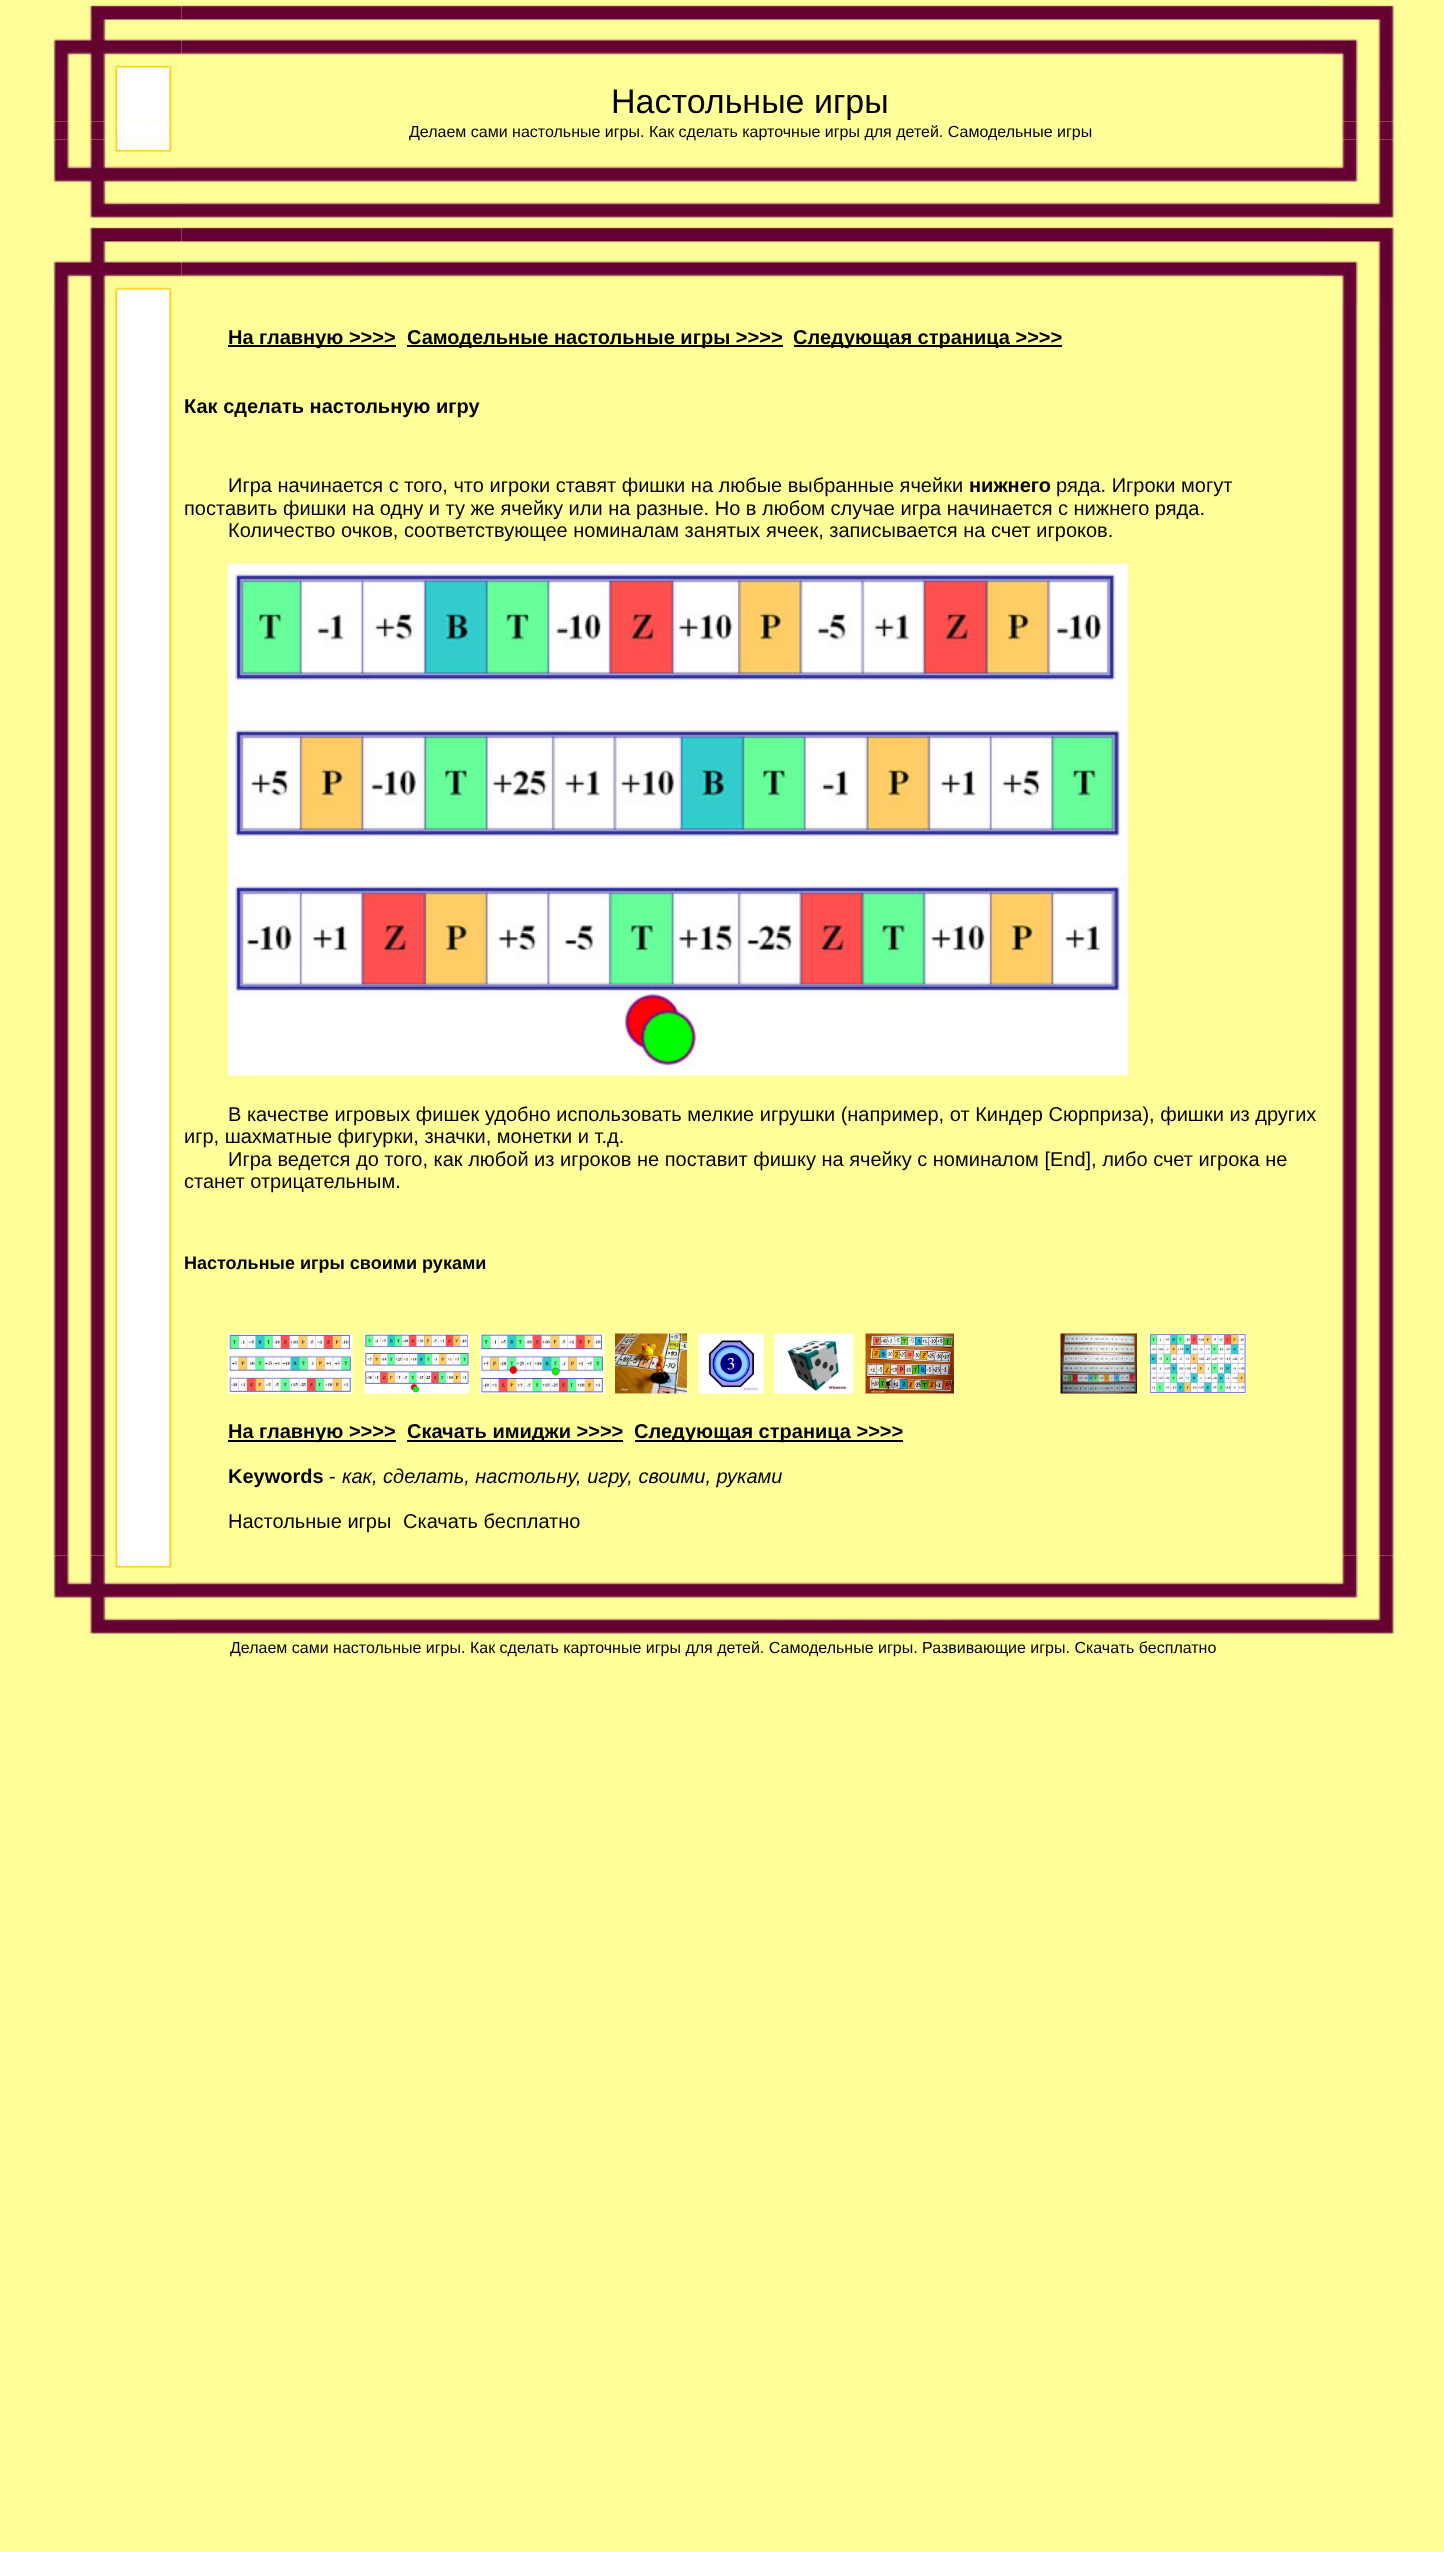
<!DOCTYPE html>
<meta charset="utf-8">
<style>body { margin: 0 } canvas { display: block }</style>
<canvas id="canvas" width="1444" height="2552"></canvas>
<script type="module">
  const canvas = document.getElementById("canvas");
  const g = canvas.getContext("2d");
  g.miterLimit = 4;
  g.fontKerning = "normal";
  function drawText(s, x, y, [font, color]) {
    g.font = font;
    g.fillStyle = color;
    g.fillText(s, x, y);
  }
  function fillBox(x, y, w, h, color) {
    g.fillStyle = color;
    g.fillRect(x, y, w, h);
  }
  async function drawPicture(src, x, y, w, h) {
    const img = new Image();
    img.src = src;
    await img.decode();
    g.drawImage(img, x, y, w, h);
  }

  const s1 = ["34px Liberation Sans", "#000000"];
  const s2 = ["16px Liberation Sans", "#000000"];
  const s3 = ["bold 20px Liberation Sans", "#000000"];
  const s4 = ["20px Liberation Sans", "#000000"];
  const s5 = ["bold 18px Liberation Sans", "#000000"];
  const s6 = ["italic 20px Liberation Sans", "#000000"];

  fillBox(0, 0, 1444, 2552, "#FFFF99");
  await drawPicture("pic1.png", 48, 0, 134, 81);
  await drawPicture("pic2.png", 181, 5, 1142, 52);
  await drawPicture("pic3.png", 1323, 0, 72, 81);
  await drawPicture("pic4.png", 48, 81, 129, 41);
  drawText("Настольные игры", 611, 113, s1);
  await drawPicture("pic5.png", 1342, 81, 53, 41);
  await drawPicture("pic6.png", 48, 121, 129, 19);
  drawText("Делаем сами настольные игры. Как сделать карточные игры для детей. Самодельные игры", 409, 137, s2);
  await drawPicture("pic7.png", 1342, 121, 53, 19);
  await drawPicture("pic8.png", 48, 139, 129, 83);
  await drawPicture("pic9.png", 177, 165, 1152, 57);
  await drawPicture("pic10.png", 1329, 139, 69, 83);
  await drawPicture("pic1.png", 48, 222, 134, 81);
  await drawPicture("pic11.png", 181, 227, 1142, 52);
  await drawPicture("pic3.png", 1323, 222, 72, 81);
  await drawPicture("pic12.png", 48, 303, 129, 1253);
  fillBox(228, 345, 168, 2, "#000000");
  drawText("На главную >>>>", 228, 344, s3);
  fillBox(407, 345, 376, 2, "#000000");
  drawText("Самодельные настольные игры >>>>", 407, 344, s3);
  fillBox(794, 345, 268, 2, "#000000");
  drawText("Следующая страница >>>>", 793, 344, s3);
  drawText("Как сделать настольную игру", 184, 413, s3);
  drawText("Игра начинается с того, что игроки ставят фишки на любые выбранные ячейки", 228, 492, s4);
  drawText("нижнего", 969, 492, s3);
  drawText("ряда. Игроки могут", 1056, 492, s4);
  drawText("поставить фишки на одну и ту же ячейку или на разные. Но в любом случае игра начинается с нижнего ряда.", 184, 515, s4);
  drawText("Количество очков, соответствующее номиналам занятых ячеек, записывается на счет игроков.", 228, 537, s4);
  await drawPicture("pic13.png", 228, 564, 900, 512);
  drawText("В качестве игровых фишек удобно использовать мелкие игрушки (например, от Киндер Сюрприза), фишки из других", 228, 1121, s4);
  drawText("игр, шахматные фигурки, значки, монетки и т.д.", 184, 1143, s4);
  drawText("Игра ведется до того, как любой из игроков не поставит фишку на ячейку с номиналом [End], либо счет игрока не", 228, 1166, s4);
  drawText("станет отрицательным.", 184, 1188, s4);
  drawText("Настольные игры своими руками", 184, 1269, s5);
  await drawPicture("pic14.png", 228, 1333, 125, 61);
  await drawPicture("pic15.png", 364, 1333, 106, 61);
  await drawPicture("pic16.png", 480, 1333, 125, 61);
  await drawPicture("pic17.png", 615, 1333, 72, 61);
  await drawPicture("pic18.png", 699, 1333, 65, 61);
  await drawPicture("pic19.png", 774, 1333, 80, 61);
  await drawPicture("pic20.png", 865, 1333, 89, 61);
  await drawPicture("pic21.png", 1060, 1333, 77, 61);
  await drawPicture("pic22.png", 1149, 1333, 98, 61);
  fillBox(228, 1440, 168, 2, "#000000");
  drawText("На главную >>>>", 228, 1438, s3);
  fillBox(407, 1440, 216, 2, "#000000");
  drawText("Скачать имиджи >>>>", 407, 1438, s3);
  fillBox(635, 1440, 268, 2, "#000000");
  drawText("Следующая страница >>>>", 634, 1438, s3);
  drawText("Keywords", 228, 1483, s3);
  drawText("-", 329, 1483, s4);
  drawText("как, сделать, настольну, игру, своими, руками", 342, 1483, s6);
  drawText("Настольные игры", 228, 1528, s4);
  drawText("Скачать бесплатно", 403, 1528, s4);
  await drawPicture("pic23.png", 1342, 303, 53, 1253);
  await drawPicture("pic8.png", 48, 1555, 129, 83);
  await drawPicture("pic24.png", 177, 1581, 1152, 57);
  await drawPicture("pic10.png", 1329, 1555, 69, 83);
  drawText("Делаем сами настольные игры. Как сделать карточные игры для детей. Самодельные игры. Развивающие игры. Скачать бесплатно", 230, 1653, s2);
</script>
